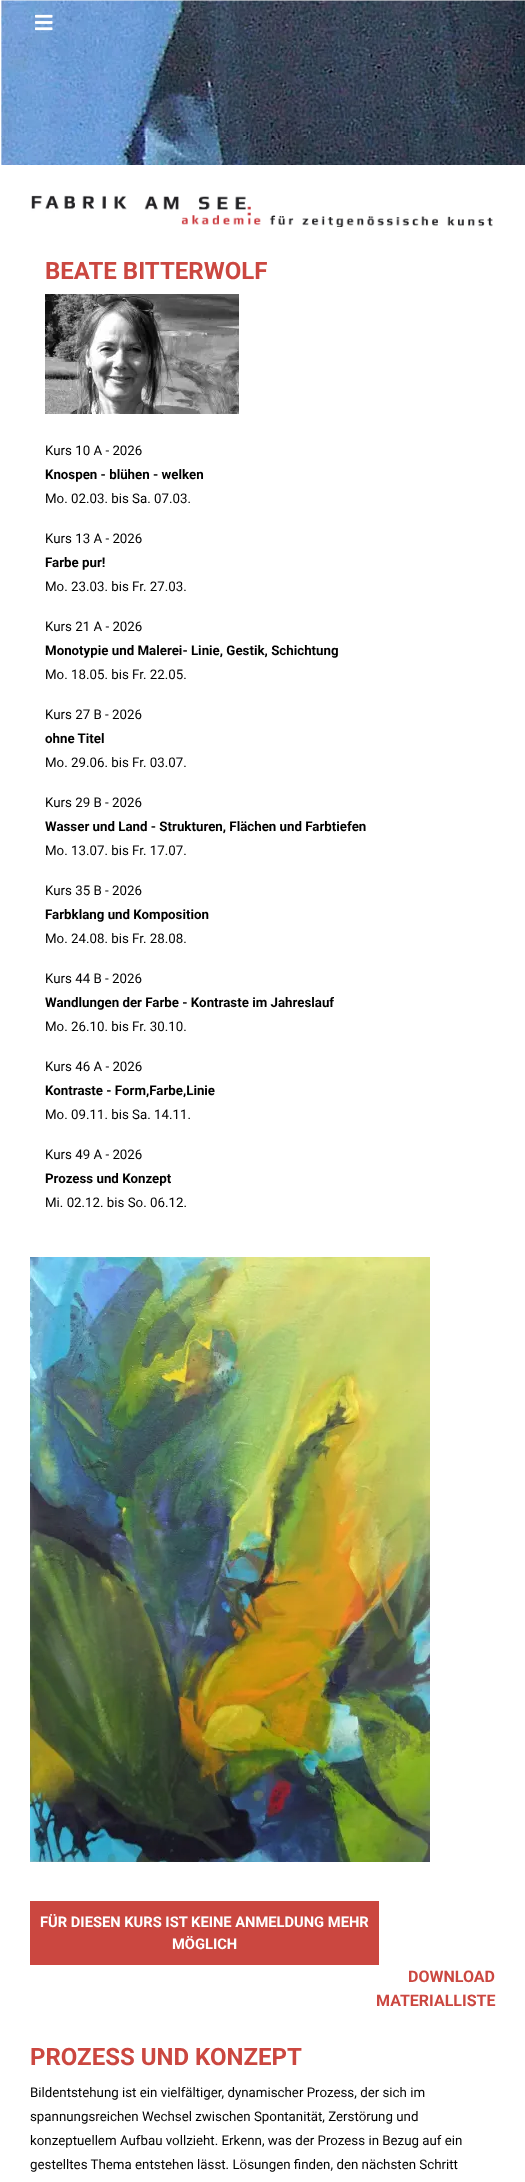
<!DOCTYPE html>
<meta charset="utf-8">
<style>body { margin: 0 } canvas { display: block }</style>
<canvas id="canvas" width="525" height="2182"></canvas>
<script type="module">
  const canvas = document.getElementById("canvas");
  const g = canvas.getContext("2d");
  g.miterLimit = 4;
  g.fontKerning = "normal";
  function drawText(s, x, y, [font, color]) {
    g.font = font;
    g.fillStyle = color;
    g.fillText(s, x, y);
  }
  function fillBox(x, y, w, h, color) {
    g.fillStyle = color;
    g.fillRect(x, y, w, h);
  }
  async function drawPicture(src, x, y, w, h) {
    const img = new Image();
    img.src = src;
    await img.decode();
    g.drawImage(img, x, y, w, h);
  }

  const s1 = ["bold 24px Roboto", "#CB4740"];
  const s2 = ["13.3px Roboto", "#000000"];
  const s3 = ["bold 13.3px Roboto", "#000000"];
  const s4 = ["bold 14.7px Roboto", "#FFFFFF"];
  const s5 = ["bold 16px Roboto", "#CB4740"];

  fillBox(0, 0, 525, 2182, "#FFFFFF");
  await drawPicture("pic1.png", 1, 0, 524, 165);
  await drawPicture("pic2.png", 35, 14, 18, 17);
  await drawPicture("pic3.png", 31, 195, 462, 32);
  drawText("BEATE BITTERWOLF", 45, 279, s1);
  await drawPicture("pic4.png", 45, 294, 194, 120);
  drawText("Kurs 10 A - 2026", 45, 455, s2);
  drawText("Knospen - blühen - welken", 45, 479, s3);
  drawText("Mo. 02.03. bis Sa. 07.03.", 45, 503, s2);
  drawText("Kurs 13 A - 2026", 45, 543, s2);
  drawText("Farbe pur!", 45, 567, s3);
  drawText("Mo. 23.03. bis Fr. 27.03.", 45, 591, s2);
  drawText("Kurs 21 A - 2026", 45, 631, s2);
  drawText("Monotypie und Malerei- Linie, Gestik, Schichtung", 45, 655, s3);
  drawText("Mo. 18.05. bis Fr. 22.05.", 45, 679, s2);
  drawText("Kurs 27 B - 2026", 45, 719, s2);
  drawText("ohne Titel", 45, 743, s3);
  drawText("Mo. 29.06. bis Fr. 03.07.", 45, 767, s2);
  drawText("Kurs 29 B - 2026", 45, 807, s2);
  drawText("Wasser und Land - Strukturen, Flächen und Farbtiefen", 45, 831, s3);
  drawText("Mo. 13.07. bis Fr. 17.07.", 45, 855, s2);
  drawText("Kurs 35 B - 2026", 45, 895, s2);
  drawText("Farbklang und Komposition", 45, 919, s3);
  drawText("Mo. 24.08. bis Fr. 28.08.", 45, 943, s2);
  drawText("Kurs 44 B - 2026", 45, 983, s2);
  drawText("Wandlungen der Farbe - Kontraste im Jahreslauf", 45, 1007, s3);
  drawText("Mo. 26.10. bis Fr. 30.10.", 45, 1031, s2);
  drawText("Kurs 46 A - 2026", 45, 1071, s2);
  drawText("Kontraste - Form,Farbe,Linie", 45, 1095, s3);
  drawText("Mo. 09.11. bis Sa. 14.11.", 45, 1119, s2);
  drawText("Kurs 49 A - 2026", 45, 1159, s2);
  drawText("Prozess und Konzept", 45, 1183, s3);
  drawText("Mi. 02.12. bis So. 06.12.", 45, 1207, s2);
  await drawPicture("pic5.png", 30, 1257, 400, 605);
  fillBox(30, 1901, 349, 64, "#CB4740");
  drawText("FÜR DIESEN KURS IST KEINE ANMELDUNG MEHR", 40, 1927, s4);
  drawText("MÖGLICH", 172, 1949, s4);
  drawText("DOWNLOAD", 408, 1982, s5);
  drawText("MATERIALLISTE", 376, 2006, s5);
  drawText("PROZESS UND KONZEPT", 30, 2065, s1);
  drawText("Bildentstehung ist ein vielfältiger, dynamischer Prozess, der sich im", 30, 2097, s2);
  drawText("spannungsreichen Wechsel zwischen Spontanität, Zerstörung und", 30, 2121, s2);
  drawText("konzeptuellem Aufbau vollzieht. Erkenn, was der Prozess in Bezug auf ein", 30, 2145, s2);
  drawText("gestelltes Thema entstehen lässt. Lösungen finden, den nächsten Schritt", 30, 2169, s2);
</script>
